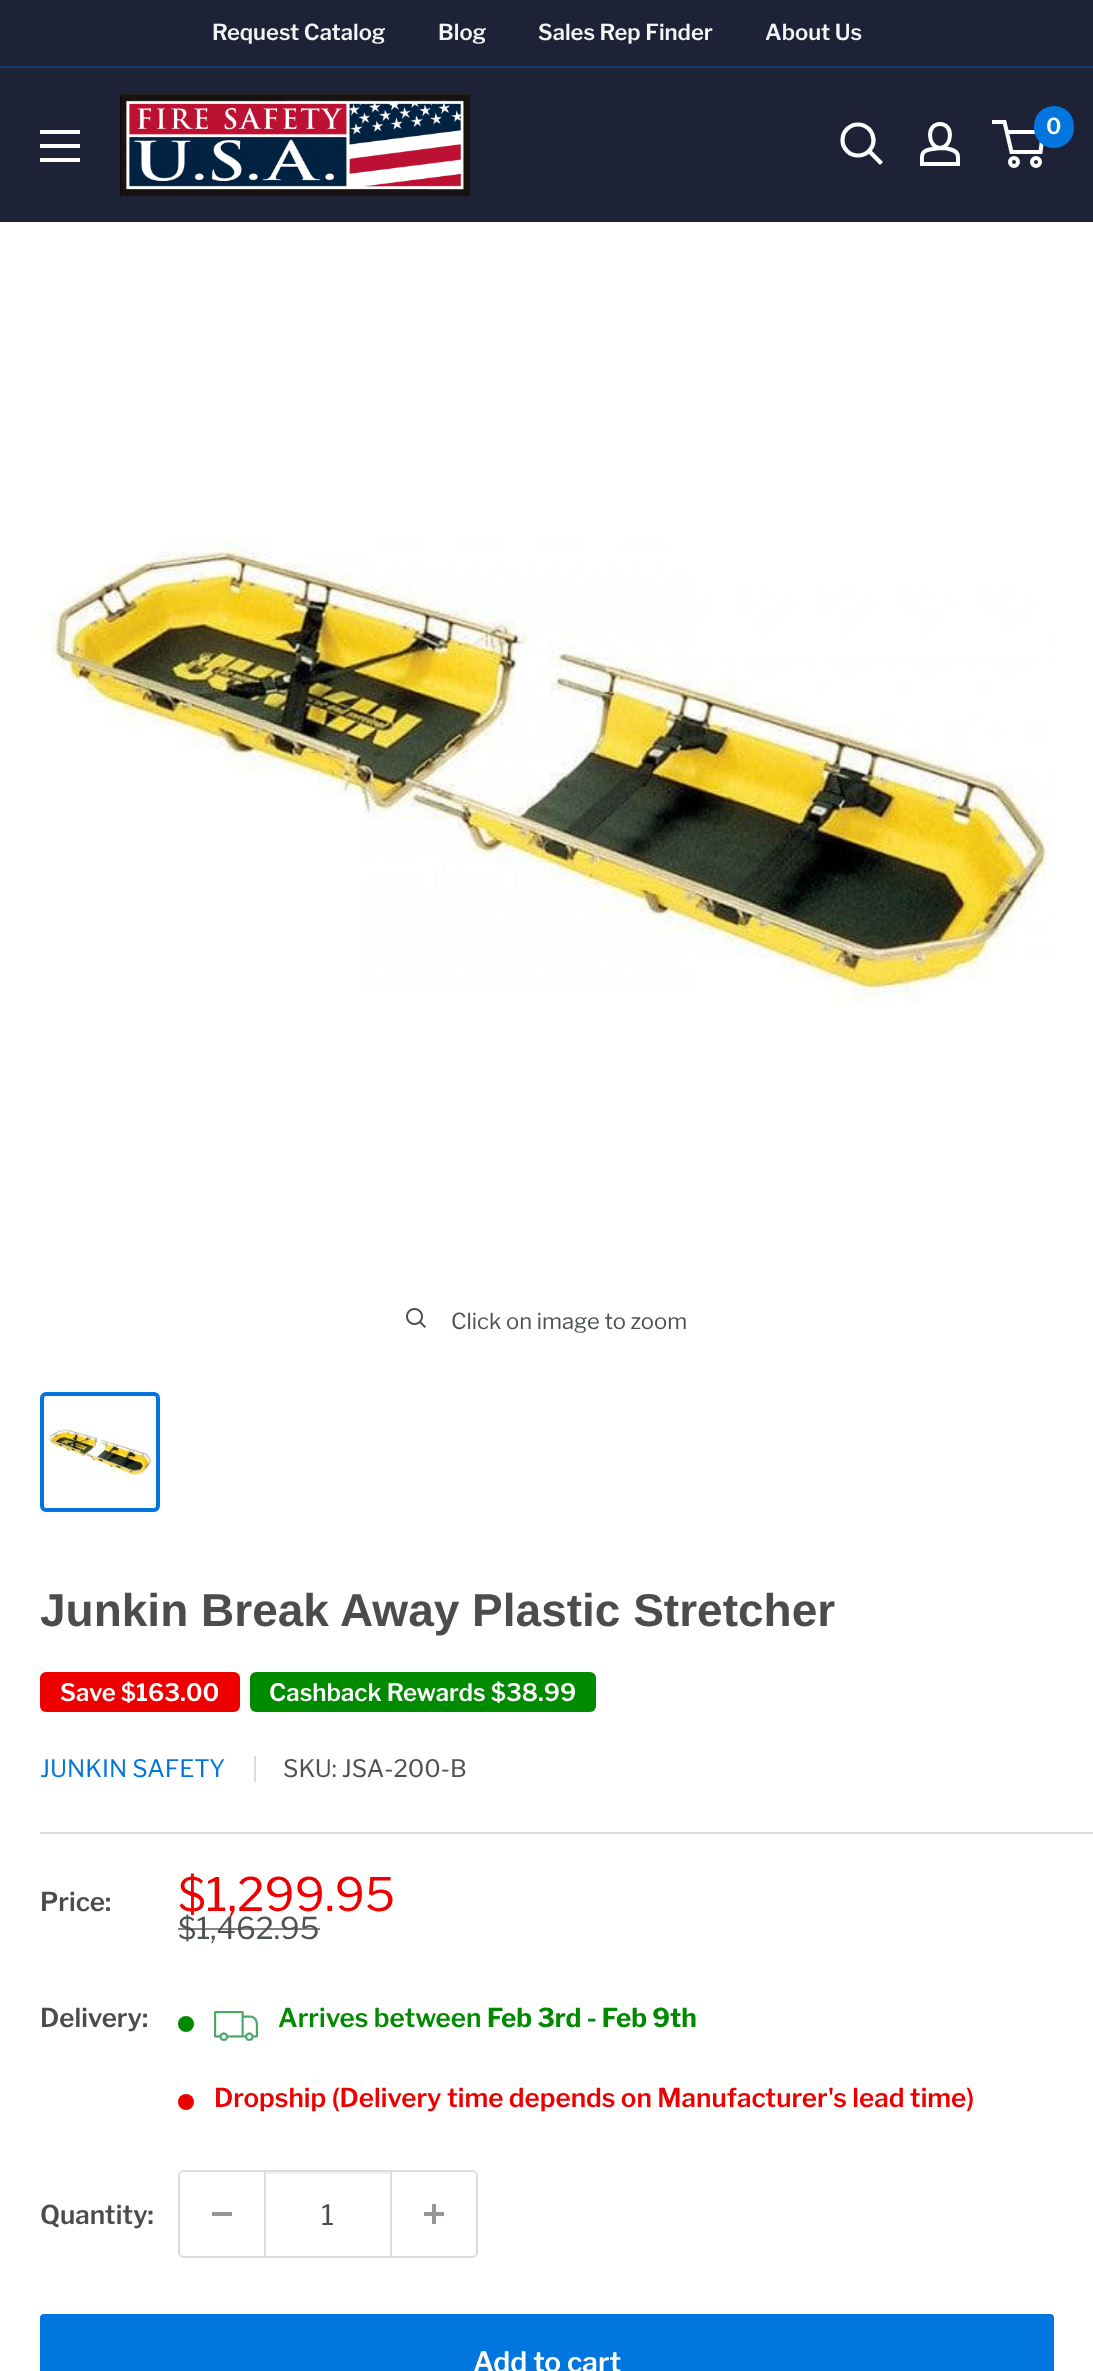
<!DOCTYPE html>
<meta charset="utf-8">
<style>body { margin: 0 } canvas { display: block }</style>
<canvas id="canvas" width="1093" height="2371"></canvas>
<script type="module">
  const canvas = document.getElementById("canvas");
  const g = canvas.getContext("2d");
  g.miterLimit = 4;
  g.fontKerning = "normal";
  function drawText(s, x, y, [font, color]) {
    g.font = font;
    g.fillStyle = color;
    g.fillText(s, x, y);
  }
  function fillBox(x, y, w, h, color) {
    g.fillStyle = color;
    g.fillRect(x, y, w, h);
  }
  function fillRounded(x, y, w, h, r, color) {
    g.fillStyle = color;
    g.beginPath();
    g.roundRect(x, y, w, h, r);
    g.fill();
  }
  async function drawPicture(src, x, y, w, h) {
    const img = new Image();
    img.src = src;
    await img.decode();
    g.drawImage(img, x, y, w, h);
  }

  const s1 = ["600 22px Libre Franklin", "#F4F4F5"];
  const s2 = ["600 22px Libre Franklin", "#FFFFFF"];
  const s3 = ["100 22px Libre Franklin", "#4C5154"];
  const s4 = ["bold 46px Arimo", "#4C4C4C"];
  const s5 = ["600 24px Libre Franklin", "#FFFFFF"];
  const s6 = ["100 24px Libre Franklin", "#0076DE"];
  const s7 = ["100 24px Libre Franklin", "#4C5154"];
  const s8 = ["600 26px Libre Franklin", "#4C4C4C"];
  const s9 = ["100 46px Libre Franklin", "#EE0000"];
  const s10 = ["100 30px Libre Franklin", "#4C5154"];
  const s11 = ["600 26px Libre Franklin", "#008A00"];
  const s12 = ["bold 26px Libre Franklin", "#008A00"];
  const s13 = ["600 26px Libre Franklin", "#EE0000"];
  const s14 = ["100 28px Libre Franklin", "#4C4C4C"];
  const s15 = ["600 28px Libre Franklin", "#FFFFFF"];

  fillBox(0, 0, 1093, 2371, "#1D2236");
  fillBox(0, 66, 1093, 2, "#143B68");
  drawText("Request Catalog", 212, 40, s1);
  drawText("Blog", 438, 40, s1);
  drawText("Sales Rep Finder", 538, 40, s1);
  drawText("About Us", 765, 40, s1);
  await drawPicture("pic1.png", 120, 94, 350, 103);
  g.beginPath();
  g.moveTo(880, 162);
  g.lineTo(869.5, 151.5);
  g.strokeStyle = "#FFFFFF";
  g.lineWidth = 4.2;
  g.lineCap = "square";
  g.stroke();
  g.beginPath();
  g.arc(858, 140, 15.5, 0, Math.PI * 2);
  g.stroke();
  g.beginPath();
  g.moveTo(940, 148);
  g.bezierCurveTo(944, 148, 947.5, 148.5, 951, 149.5);
  g.bezierCurveTo(959.5, 152, 958, 156.5, 958, 164);
  g.lineTo(922, 164);
  g.bezierCurveTo(922, 156, 920.5, 151.5, 929.5, 149.5);
  g.closePath();
  g.moveTo(940, 148);
  g.bezierCurveTo(928, 148, 925.5, 124, 940, 124);
  g.bezierCurveTo(954.5, 124, 952, 148, 940, 148);
  g.closePath();
  g.lineWidth = 4;
  g.lineCap = "butt";
  g.stroke();
  g.beginPath();
  g.arc(1014, 162, 4, 0, Math.PI * 2);
  g.stroke();
  g.beginPath();
  g.arc(1036, 162, 4, 0, Math.PI * 2);
  g.stroke();
  g.beginPath();
  g.moveTo(1006.5, 132);
  g.lineTo(1043, 132);
  g.lineTo(1040.5, 152);
  g.lineTo(1011.5, 152);
  g.lineTo(1004.5, 122);
  g.lineTo(992, 122);
  g.stroke();
  fillRounded(1034, 106, 40, 42, 20, "#0076DE");
  drawText("0", 1046, 134, s2);
  g.beginPath();
  g.moveTo(40, 158);
  g.lineTo(80, 158);
  g.lineTo(80, 162);
  g.lineTo(40, 162);
  g.closePath();
  g.moveTo(40, 130);
  g.lineTo(80, 130);
  g.lineTo(80, 134);
  g.lineTo(40, 134);
  g.closePath();
  g.moveTo(40, 144);
  g.lineTo(80, 144);
  g.lineTo(80, 148);
  g.lineTo(40, 148);
  g.closePath();
  g.fill("evenodd");
  fillBox(0, 222, 1093, 2149, "#FFFFFF");
  await drawPicture("pic2.png", 40, 539, 1014, 465);
  await drawPicture("pic3.png", 406, 1308, 20, 20);
  drawText("Click on image to zoom", 451, 1329, s3);
  g.beginPath();
  g.roundRect(42, 1394, 116, 116, 4);
  g.strokeStyle = "#0076DE";
  g.stroke();
  await drawPicture("pic4.png", 48, 1428, 104, 49);
  drawText("Junkin Break Away Plastic Stretcher", 40, 1626, s4);
  fillRounded(40, 1672, 200, 40, 6, "#EE0000");
  drawText("Save $163.00", 60, 1701, s5);
  fillRounded(250, 1672, 346, 40, 6, "#008A00");
  drawText("Cashback Rewards $38.99", 269, 1701, s5);
  drawText("JUNKIN SAFETY", 40, 1777, s6);
  fillBox(254, 1756, 2, 26, "#DBDBDB");
  drawText("SKU: JSA-200-B", 283, 1777, s7);
  fillBox(40, 1832, 1053, 2, "#DBDBDB");
  drawText("Price:", 40, 1911, s8);
  drawText("$1,299.95", 178, 1911, s9);
  drawText("$1,462.95", 178, 1939, s10);
  fillBox(178, 1928, 142, 2, "rgba(76, 81, 84, 0.7)");
  drawText("Delivery:", 40, 2027, s8);
  g.fillStyle = "#008A00";
  g.beginPath();
  g.arc(186, 2024, 8, 0, Math.PI * 2);
  g.fill();
  await drawPicture("pic5.png", 214, 2011, 44, 30);
  drawText("Arrives between", 278, 2027, s11);
  drawText("Feb 3rd - Feb 9th", 487, 2027, s12);
  g.fillStyle = "#EE0000";
  g.beginPath();
  g.arc(186, 2102, 8, 0, Math.PI * 2);
  g.fill();
  drawText("Dropship (Delivery time depends on Manufacturer's lead time)", 214, 2107, s13);
  drawText("Quantity:", 40, 2224, s8);
  g.beginPath();
  g.roundRect(179, 2171, 298, 86, 5);
  g.strokeStyle = "#DBDBDB";
  g.lineWidth = 2;
  g.stroke();
  fillBox(212, 2212, 20, 4, "#949798");
  fillBox(266, 2172, 124, 2, "#F1F1F1");
  fillBox(390, 2172, 2, 84, "#DBDBDB");
  fillBox(264, 2172, 2, 84, "#DBDBDB");
  drawText("1", 321, 2225, s14);
  await drawPicture("pic6.png", 424, 2204, 20, 20);
  fillRounded(40, 2314, 1014, 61, 4, "#0076DE");
  drawText("Add to cart", 473, 2372, s15);
</script>
